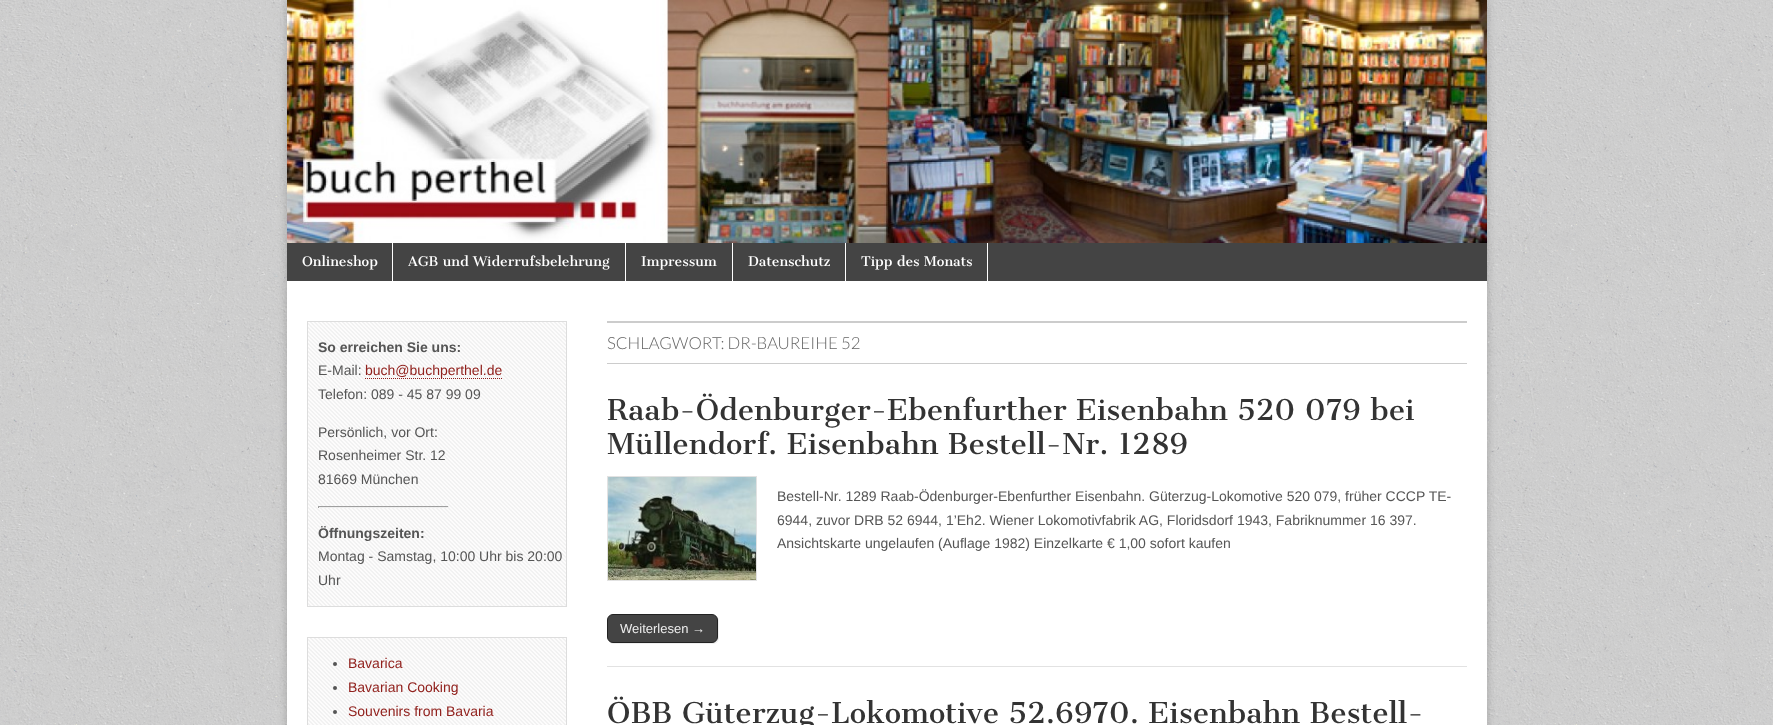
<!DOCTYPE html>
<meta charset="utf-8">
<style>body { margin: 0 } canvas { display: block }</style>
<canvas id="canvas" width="1773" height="725"></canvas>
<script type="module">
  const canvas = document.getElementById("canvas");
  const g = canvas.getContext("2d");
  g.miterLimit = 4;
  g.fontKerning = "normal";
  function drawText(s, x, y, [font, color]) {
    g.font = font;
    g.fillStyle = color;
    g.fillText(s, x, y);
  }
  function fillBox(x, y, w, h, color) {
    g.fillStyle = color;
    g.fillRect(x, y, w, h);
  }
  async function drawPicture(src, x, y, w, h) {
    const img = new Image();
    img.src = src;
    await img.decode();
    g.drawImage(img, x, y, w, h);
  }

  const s1 = ["13px Cantata One", "#FFFFFF"];
  const s2 = ["bold 14px Liberation Sans", "#555555"];
  const s3 = ["14px Liberation Sans", "#555555"];
  const s4 = ["14px Liberation Sans", "#91211D"];
  const s5 = ["300 16.75px Lato", "#666666"];
  const s6 = ["28px Cantata One", "#333333"];
  const s7 = ["13px Liberation Sans", "#EEEEEE"];

  fillBox(0, 0, 1773, 725, "#FFFFFF");
  await drawPicture("pic1.png", 0, 0, 1773, 725);
  g.fillStyle = "rgba(0, 0, 0, 0.2)";
  g.filter = "blur(5px)";
  g.beginPath();
  g.rect(287, 0, 1200, 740);
  g.fill();
  g.filter = "none";
  fillBox(287, 281, 1200, 444, "#FFFFFF");
  await drawPicture("pic2.png", 287, 0, 1200, 243);
  fillBox(287, 243, 1200, 38, "#444444");
  fillBox(392, 243, 1, 38, "#FFFFFF");
  drawText("Onlineshop", 302, 266, s1);
  fillBox(625, 243, 1, 38, "#FFFFFF");
  drawText("AGB und Widerrufsbelehrung", 408, 266, s1);
  fillBox(732, 243, 1, 38, "#FFFFFF");
  drawText("Impressum", 641, 266, s1);
  fillBox(845, 243, 1, 38, "#FFFFFF");
  drawText("Datenschutz", 748, 266, s1);
  fillBox(987, 243, 1, 38, "#FFFFFF");
  drawText("Tipp des Monats", 861, 266, s1);
  await drawPicture("pic3.png", 308, 322, 258, 284);
  g.strokeStyle = "#DDDDDD";
  g.strokeRect(307.5, 321.5, 259, 285);
  drawText("So erreichen Sie uns:", 318, 352, s2);
  drawText("E-Mail:", 318, 375, s3);
  drawText("buch@buchperthel.de", 365, 375, s4);
  g.beginPath();
  g.moveTo(365, 378.5);
  g.lineTo(502, 378.5);
  g.strokeStyle = "#91211D";
  g.setLineDash([1, 1]);
  g.stroke();
  drawText("Telefon: 089 - 45 87 99 09", 318, 399, s3);
  drawText("Persönlich, vor Ort:", 318, 437, s3);
  drawText("Rosenheimer Str. 12", 318, 460, s3);
  drawText("81669 München", 318, 484, s3);
  fillBox(318, 506, 131, 1, "#9F9F9F");
  fillBox(448, 506, 1, 2, "#EEEEEE");
  fillBox(318, 507, 131, 1, "#EEEEEE");
  fillBox(318, 506, 1, 2, "#9F9F9F");
  drawText("Öffnungszeiten:", 318, 538, s2);
  drawText("Montag - Samstag, 10:00 Uhr bis 20:00", 318, 561, s3);
  drawText("Uhr", 318, 585, s3);
  await drawPicture("pic4.png", 308, 638, 258, 87);
  g.strokeStyle = "#DDDDDD";
  g.setLineDash([]);
  g.strokeRect(307.5, 637.5, 259, 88);
  g.beginPath();
  g.arc(335, 664, 2, 0, Math.PI * 2);
  g.fill();
  drawText("Bavarica", 348, 668, s4);
  g.fillStyle = "#555555";
  g.beginPath();
  g.arc(335, 688, 2, 0, Math.PI * 2);
  g.fill();
  drawText("Bavarian Cooking", 348, 692, s4);
  g.fillStyle = "#555555";
  g.beginPath();
  g.arc(335, 712, 2, 0, Math.PI * 2);
  g.fill();
  drawText("Souvenirs from Bavaria", 348, 716, s4);
  fillBox(607, 321, 860, 2, "#CCCCCC");
  fillBox(607, 363, 860, 1, "#CCCCCC");
  drawText("SCHLAGWORT: DR-BAUREIHE 52", 607, 349, s5);
  drawText("Raab-Ödenburger-Ebenfurther Eisenbahn 520 079 bei", 607, 420, s6);
  drawText("Müllendorf. Eisenbahn Bestell-Nr. 1289", 607, 454, s6);
  fillBox(607, 666, 860, 1, "#E2E2E2");
  g.strokeStyle = "#E2E2E2";
  g.strokeRect(607.5, 476.5, 149, 104);
  await drawPicture("pic5.png", 608, 477, 148, 103);
  drawText("Bestell-Nr. 1289 Raab-Ödenburger-Ebenfurther Eisenbahn. Güterzug-Lokomotive 520 079, früher CCCP TE-", 777, 501, s3);
  drawText("6944, zuvor DRB 52 6944, 1’Eh2. Wiener Lokomotivfabrik AG, Floridsdorf 1943, Fabriknummer 16 397.", 777, 525, s3);
  drawText("Ansichtskarte ungelaufen (Auflage 1982) Einzelkarte € 1,00 sofort kaufen", 777, 548, s3);
  g.fillStyle = "#EEEEEE";
  g.beginPath();
  g.moveTo(609, 642);
  g.bezierCurveTo(610, 643, 612, 644, 614, 644);
  g.lineTo(713, 644);
  g.bezierCurveTo(716, 644, 719, 641, 719, 638);
  g.lineTo(719, 621);
  g.bezierCurveTo(719, 619, 718, 617, 717, 616);
  g.bezierCurveTo(718, 617, 718, 619, 718, 620);
  g.lineTo(718, 637);
  g.bezierCurveTo(718, 640, 715, 643, 712, 643);
  g.lineTo(613, 643);
  g.bezierCurveTo(612, 643, 610, 643, 609, 642);
  g.closePath();
  g.fill();
  g.fillStyle = "#444444";
  g.beginPath();
  g.roundRect(607.5, 614.5, 110, 28, 5.5);
  g.fill();
  g.strokeStyle = "#222222";
  g.stroke();
  drawText("Weiterlesen →", 620, 633, s7);
  drawText("ÖBB Güterzug-Lokomotive 52.6970. Eisenbahn Bestell-", 607, 723, s6);
</script>
